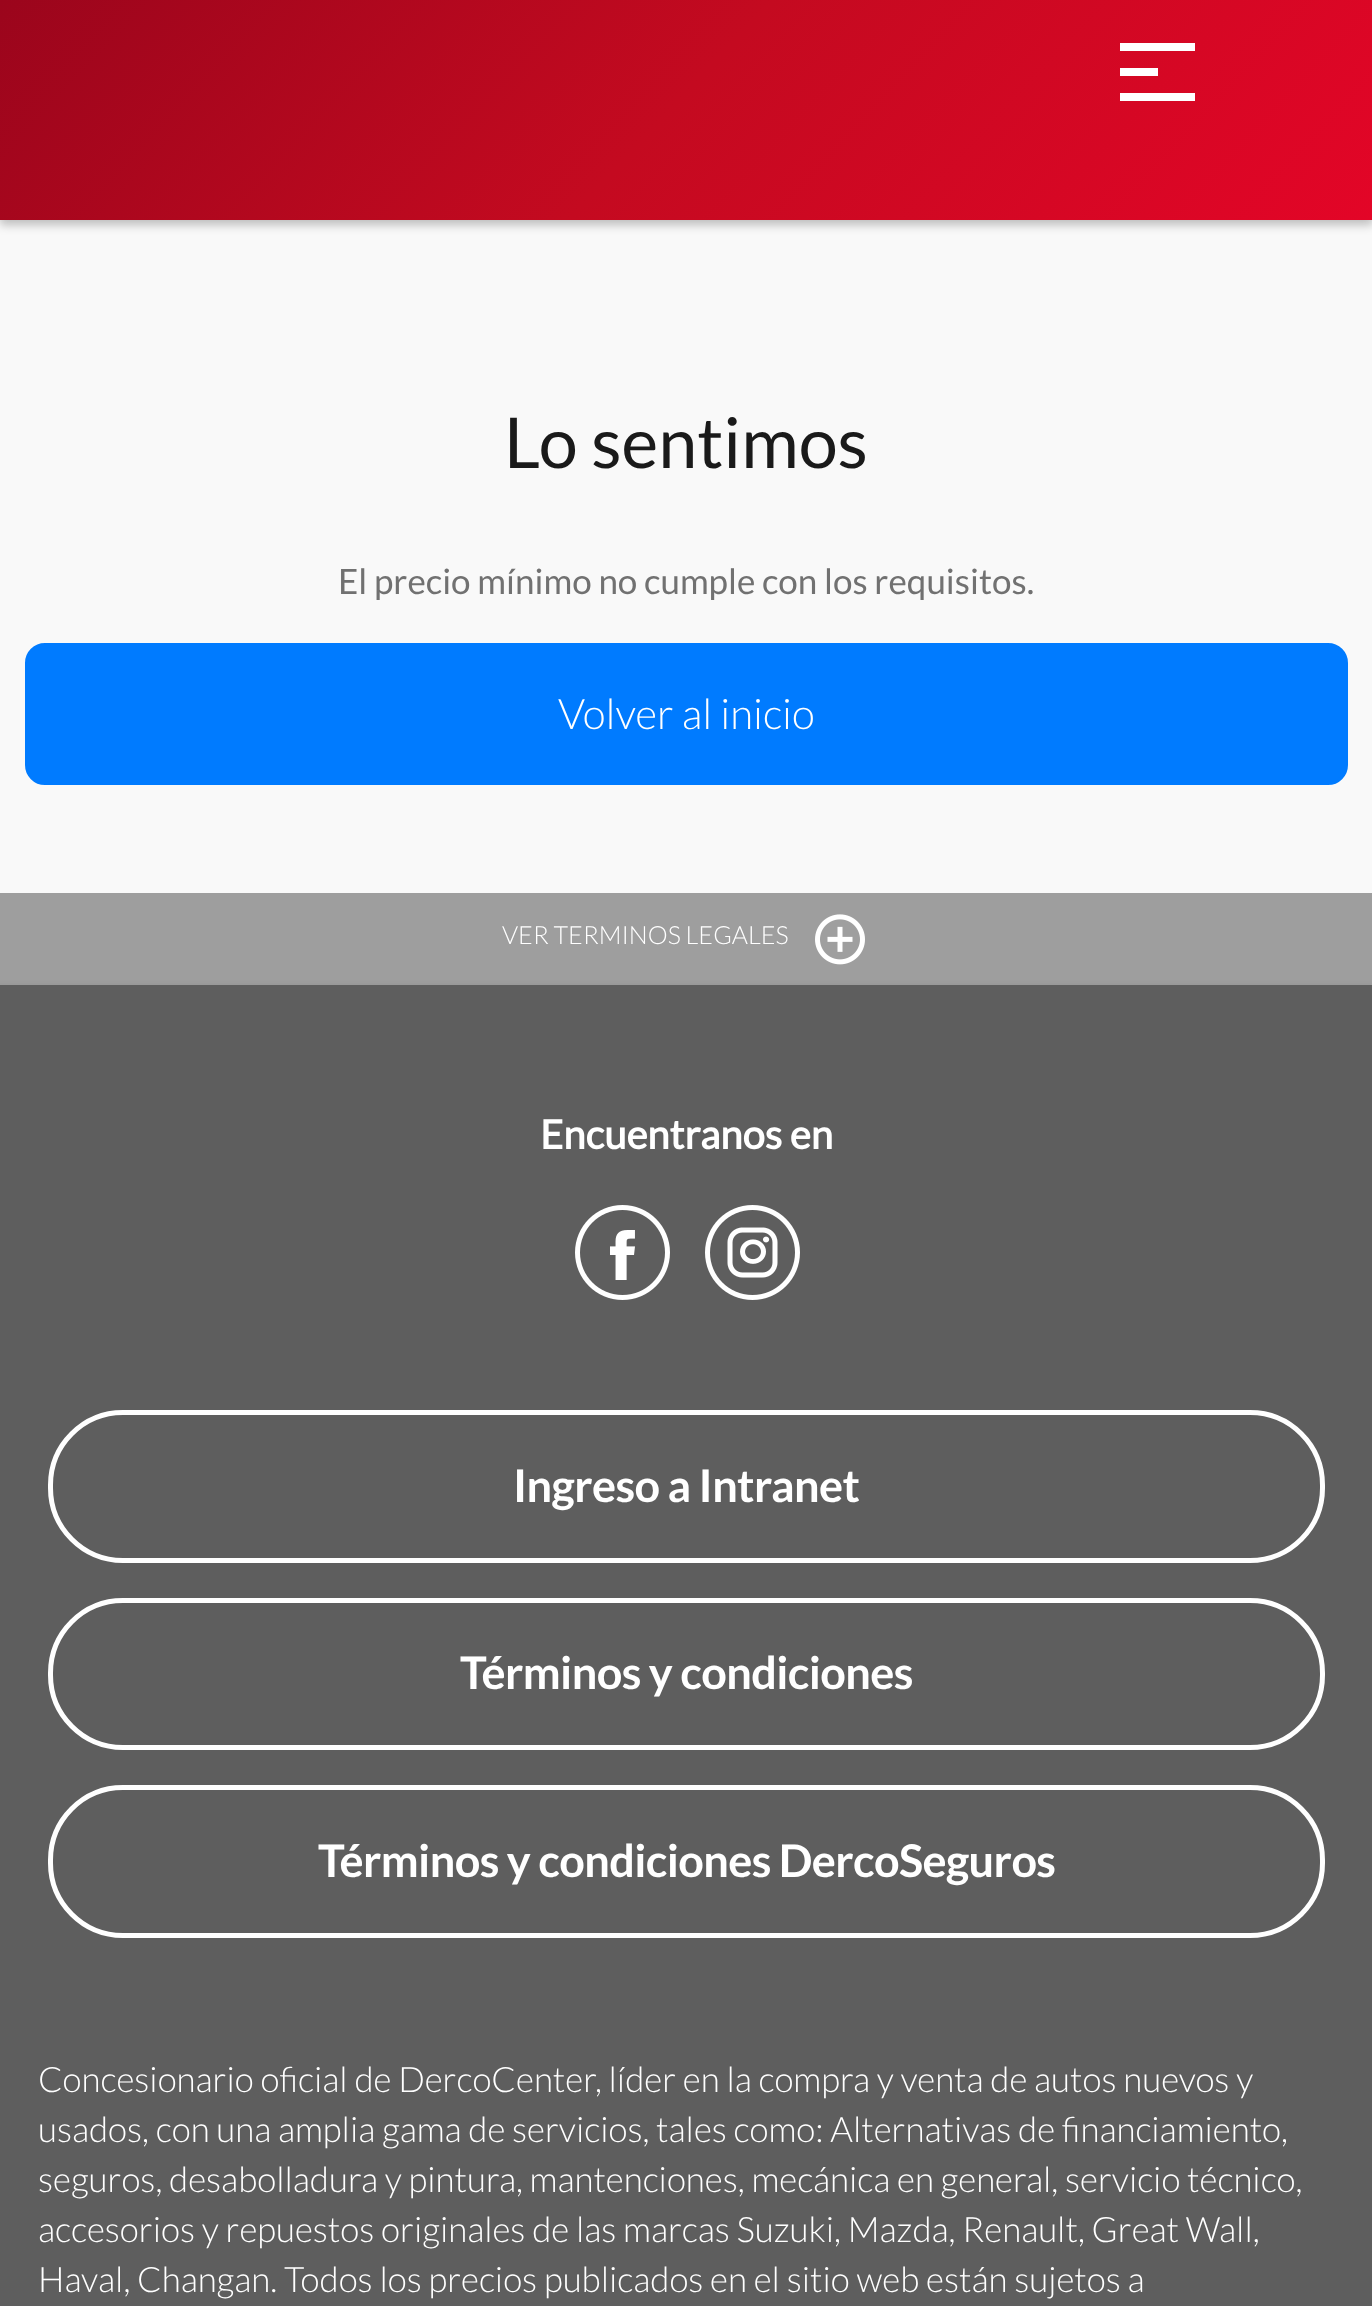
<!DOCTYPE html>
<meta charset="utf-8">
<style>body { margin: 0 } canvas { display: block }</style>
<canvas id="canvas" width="1372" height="2306"></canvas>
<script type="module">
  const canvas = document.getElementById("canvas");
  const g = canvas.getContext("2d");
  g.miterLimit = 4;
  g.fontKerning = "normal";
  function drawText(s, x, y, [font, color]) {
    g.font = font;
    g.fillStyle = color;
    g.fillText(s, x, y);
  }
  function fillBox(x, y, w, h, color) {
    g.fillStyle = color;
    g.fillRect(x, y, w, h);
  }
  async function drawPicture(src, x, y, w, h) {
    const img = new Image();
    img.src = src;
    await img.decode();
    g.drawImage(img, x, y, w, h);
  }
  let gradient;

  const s1 = ["70px Lato", "#1A1A1A"];
  const s2 = ["35px Lato", "#717171"];
  const s3 = ["300 42px Lato", "#FFFFFF"];
  const s4 = ["300 25px Lato", "#FFFFFF"];
  const s5 = ["bold 40px Lato", "#FFFFFF"];
  const s6 = ["bold 45px 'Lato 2'", "#FFFFFF"];
  const s7 = ["300 35px Lato", "#FFFFFF"];

  fillBox(0, 0, 1372, 2306, "#F9F9F9");
  g.fillStyle = "rgba(0, 0, 0, 0.24)";
  g.filter = "blur(5px)";
  g.beginPath();
  g.rect(0, 5, 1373, 220);
  g.fill();
  g.filter = "none";
  gradient = g.createLinearGradient(1109, 503, 264, -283);
  gradient.addColorStop(0, "#E30527");
  gradient.addColorStop(0.51, "#C40A20");
  gradient.addColorStop(1, "#9B051C");
  g.fillStyle = gradient;
  g.fillRect(0, 0, 1372, 220);
  fillBox(1120, 43, 75, 8, "#FFFFFF");
  fillBox(1120, 68, 38, 8, "#FFFFFF");
  fillBox(1120, 93, 75, 8, "#FFFFFF");
  drawText("Lo sentimos", 504, 468, s1);
  drawText("El precio mínimo no cumple con los requisitos.", 338, 594, s2);
  g.fillStyle = "#007BFF";
  g.beginPath();
  g.roundRect(26.5, 644.5, 1320, 139, 18.5);
  g.fill();
  g.strokeStyle = "#007BFF";
  g.lineWidth = 3;
  g.stroke();
  drawText("Volver al inicio", 558, 729, s3);
  fillBox(0, 893, 1372, 92, "#9E9E9E");
  drawText("VER TERMINOS LEGALES", 502, 944, s4);
  await drawPicture("pic1.png", 815, 914, 50, 51);
  g.fillStyle = "rgba(0, 0, 0, 0.24)";
  g.filter = "blur(5px)";
  g.beginPath();
  g.rect(-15, 990, 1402, 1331);
  g.fill();
  g.filter = "none";
  fillBox(0, 985, 1372, 1321, "#5E5E5E");
  drawText("Encuentranos en", 540, 1149, s5);
  await drawPicture("pic2.png", 575, 1205, 95, 95);
  await drawPicture("pic3.png", 705, 1205, 95, 95);
  g.beginPath();
  g.roundRect(50.5, 1412.5, 1272, 148, 72.5);
  g.strokeStyle = "#FFFFFF";
  g.lineWidth = 5;
  g.stroke();
  g.letterSpacing = "-0.6px";
  drawText("Ingreso a Intranet", 513, 1502, s6);
  g.beginPath();
  g.roundRect(50.5, 1600.5, 1272, 147, 72.5);
  g.stroke();
  drawText("Términos y condiciones", 460, 1689, s6);
  g.beginPath();
  g.roundRect(50.5, 1787.5, 1272, 148, 72.5);
  g.stroke();
  drawText("Términos y condiciones DercoSeguros", 318, 1877, s6);
  g.letterSpacing = "0px";
  drawText("Concesionario oficial de DercoCenter, líder en la compra y venta de autos nuevos y", 38, 2092, s7);
  drawText("usados, con una amplia gama de servicios, tales como: Alternativas de financiamiento,", 38, 2142, s7);
  drawText("seguros, desabolladura y pintura, mantenciones, mecánica en general, servicio técnico,", 38, 2192, s7);
  drawText("accesorios y repuestos originales de las marcas Suzuki, Mazda, Renault, Great Wall,", 38, 2242, s7);
  drawText("Haval, Changan. Todos los precios publicados en el sitio web están sujetos a", 38, 2292, s7);
</script>
